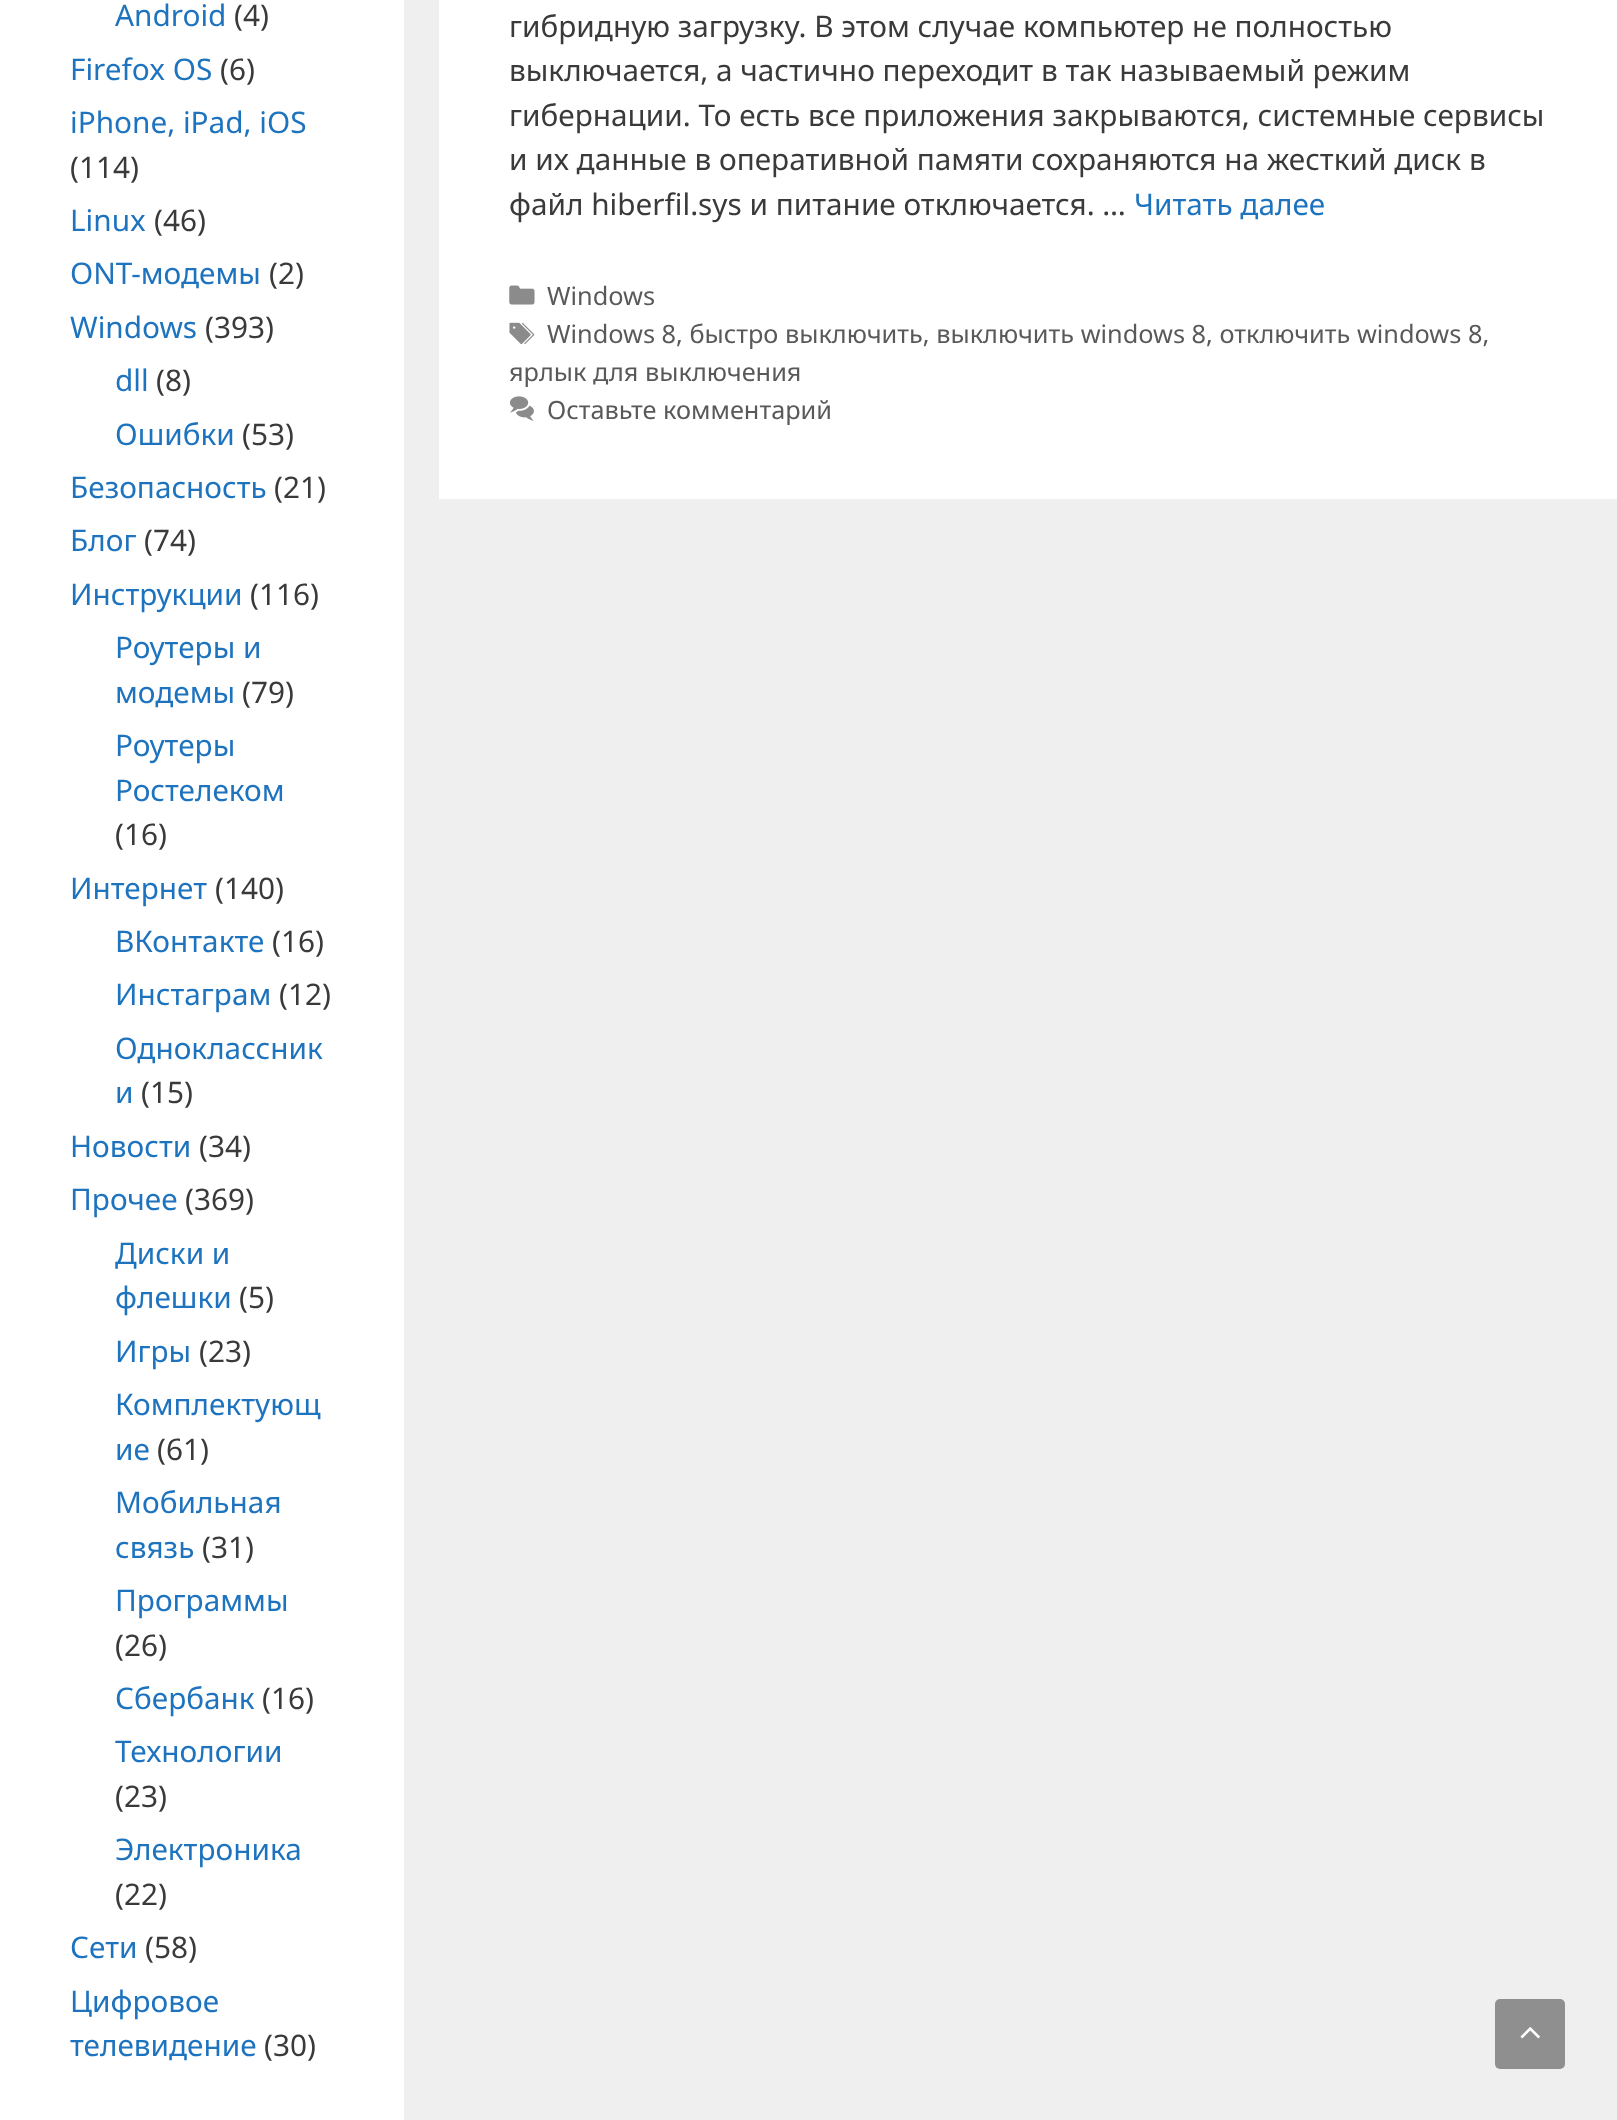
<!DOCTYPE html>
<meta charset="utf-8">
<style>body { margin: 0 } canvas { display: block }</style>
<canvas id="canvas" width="1617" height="2120"></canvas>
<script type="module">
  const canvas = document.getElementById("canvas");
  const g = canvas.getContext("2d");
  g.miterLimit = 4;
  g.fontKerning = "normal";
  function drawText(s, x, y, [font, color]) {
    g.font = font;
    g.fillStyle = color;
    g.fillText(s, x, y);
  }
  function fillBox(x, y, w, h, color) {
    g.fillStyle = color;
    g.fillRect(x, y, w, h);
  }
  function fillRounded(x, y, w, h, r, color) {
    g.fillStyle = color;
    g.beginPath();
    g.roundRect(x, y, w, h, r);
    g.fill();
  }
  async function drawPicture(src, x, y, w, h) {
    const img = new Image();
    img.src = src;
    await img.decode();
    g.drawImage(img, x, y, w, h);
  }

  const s1 = ["29.75px Noto Sans", "#1E73BE"];
  const s2 = ["29.75px Noto Sans", "#3A3A3A"];
  const s3 = ["25.3px Noto Sans", "#595959"];

  fillBox(0, 0, 1617, 2120, "#EFEFEF");
  fillBox(0, 0, 404, 2120, "#FFFFFF");
  drawText("Android", 115, 26, s1);
  drawText("(4)", 234, 26, s2);
  drawText("Firefox OS", 70, 80, s1);
  drawText("(6)", 220, 80, s2);
  drawText("iPhone, iPad, iOS", 70, 133, s1);
  drawText("(114)", 70, 178, s2);
  drawText("Linux", 70, 231, s1);
  drawText("(46)", 154, 231, s2);
  drawText("ONT-модемы", 70, 284, s1);
  drawText("(2)", 269, 284, s2);
  drawText("Windows", 70, 338, s1);
  drawText("(393)", 205, 338, s2);
  drawText("dll", 115, 391, s1);
  drawText("(8)", 156, 391, s2);
  drawText("Ошибки", 115, 445, s1);
  drawText("(53)", 242, 445, s2);
  drawText("Безопасность", 70, 498, s1);
  drawText("(21)", 274, 498, s2);
  drawText("Блог", 70, 551, s1);
  drawText("(74)", 144, 551, s2);
  drawText("Инструкции", 70, 605, s1);
  drawText("(116)", 250, 605, s2);
  drawText("Роутеры и", 115, 658, s1);
  drawText("модемы", 115, 703, s1);
  drawText("(79)", 242, 703, s2);
  drawText("Роутеры", 115, 756, s1);
  drawText("Ростелеком", 115, 801, s1);
  drawText("(16)", 115, 845, s2);
  drawText("Интернет", 70, 899, s1);
  drawText("(140)", 215, 899, s2);
  drawText("ВКонтакте", 115, 952, s1);
  drawText("(16)", 272, 952, s2);
  drawText("Инстаграм", 115, 1005, s1);
  drawText("(12)", 279, 1005, s2);
  drawText("Одноклассник", 115, 1059, s1);
  drawText("и", 115, 1103, s1);
  drawText("(15)", 141, 1103, s2);
  drawText("Новости", 70, 1157, s1);
  drawText("(34)", 199, 1157, s2);
  drawText("Прочее", 70, 1210, s1);
  drawText("(369)", 185, 1210, s2);
  drawText("Диски и", 115, 1264, s1);
  drawText("флешки", 115, 1308, s1);
  drawText("(5)", 239, 1308, s2);
  drawText("Игры", 115, 1362, s1);
  drawText("(23)", 199, 1362, s2);
  drawText("Комплектующ", 115, 1415, s1);
  drawText("ие", 115, 1460, s1);
  drawText("(61)", 157, 1460, s2);
  drawText("Мобильная", 115, 1513, s1);
  drawText("связь", 115, 1558, s1);
  drawText("(31)", 202, 1558, s2);
  drawText("Программы", 115, 1611, s1);
  drawText("(26)", 115, 1656, s2);
  drawText("Сбербанк", 115, 1709, s1);
  drawText("(16)", 262, 1709, s2);
  drawText("Технологии", 115, 1762, s1);
  drawText("(23)", 115, 1807, s2);
  drawText("Электроника", 115, 1860, s1);
  drawText("(22)", 115, 1905, s2);
  drawText("Сети", 70, 1958, s1);
  drawText("(58)", 145, 1958, s2);
  drawText("Цифровое", 70, 2012, s1);
  drawText("телевидение", 70, 2056, s1);
  drawText("(30)", 264, 2056, s2);
  fillBox(439, 0, 1178, 499, "#FFFFFF");
  drawText("гибридную загрузку. В этом случае компьютер не полностью", 509, 37, s2);
  drawText("выключается, а частично переходит в так называемый режим", 509, 81, s2);
  drawText("гибернации. То есть все приложения закрываются, системные сервисы", 509, 126, s2);
  drawText("и их данные в оперативной памяти сохраняются на жесткий диск в", 509, 170, s2);
  drawText("файл hiberfil.sys и питание отключается. …", 509, 215, s2);
  drawText("Читать далее", 1134, 215, s1);
  await drawPicture("pic1.png", 509, 285, 26, 20);
  drawText("Windows", 547, 305, s3);
  await drawPicture("pic2.png", 509, 322, 26, 23);
  drawText("Windows 8, быстро выключить, выключить windows 8, отключить windows 8,", 547, 343, s3);
  drawText("ярлык для выключения", 509, 381, s3);
  await drawPicture("pic3.png", 509, 396, 25, 25);
  drawText("Оставьте комментарий", 547, 419, s3);
  fillRounded(1495, 1999, 70, 70, 5, "#8F8F8F");
  await drawPicture("pic4.png", 1520, 2027, 20, 12);
</script>
